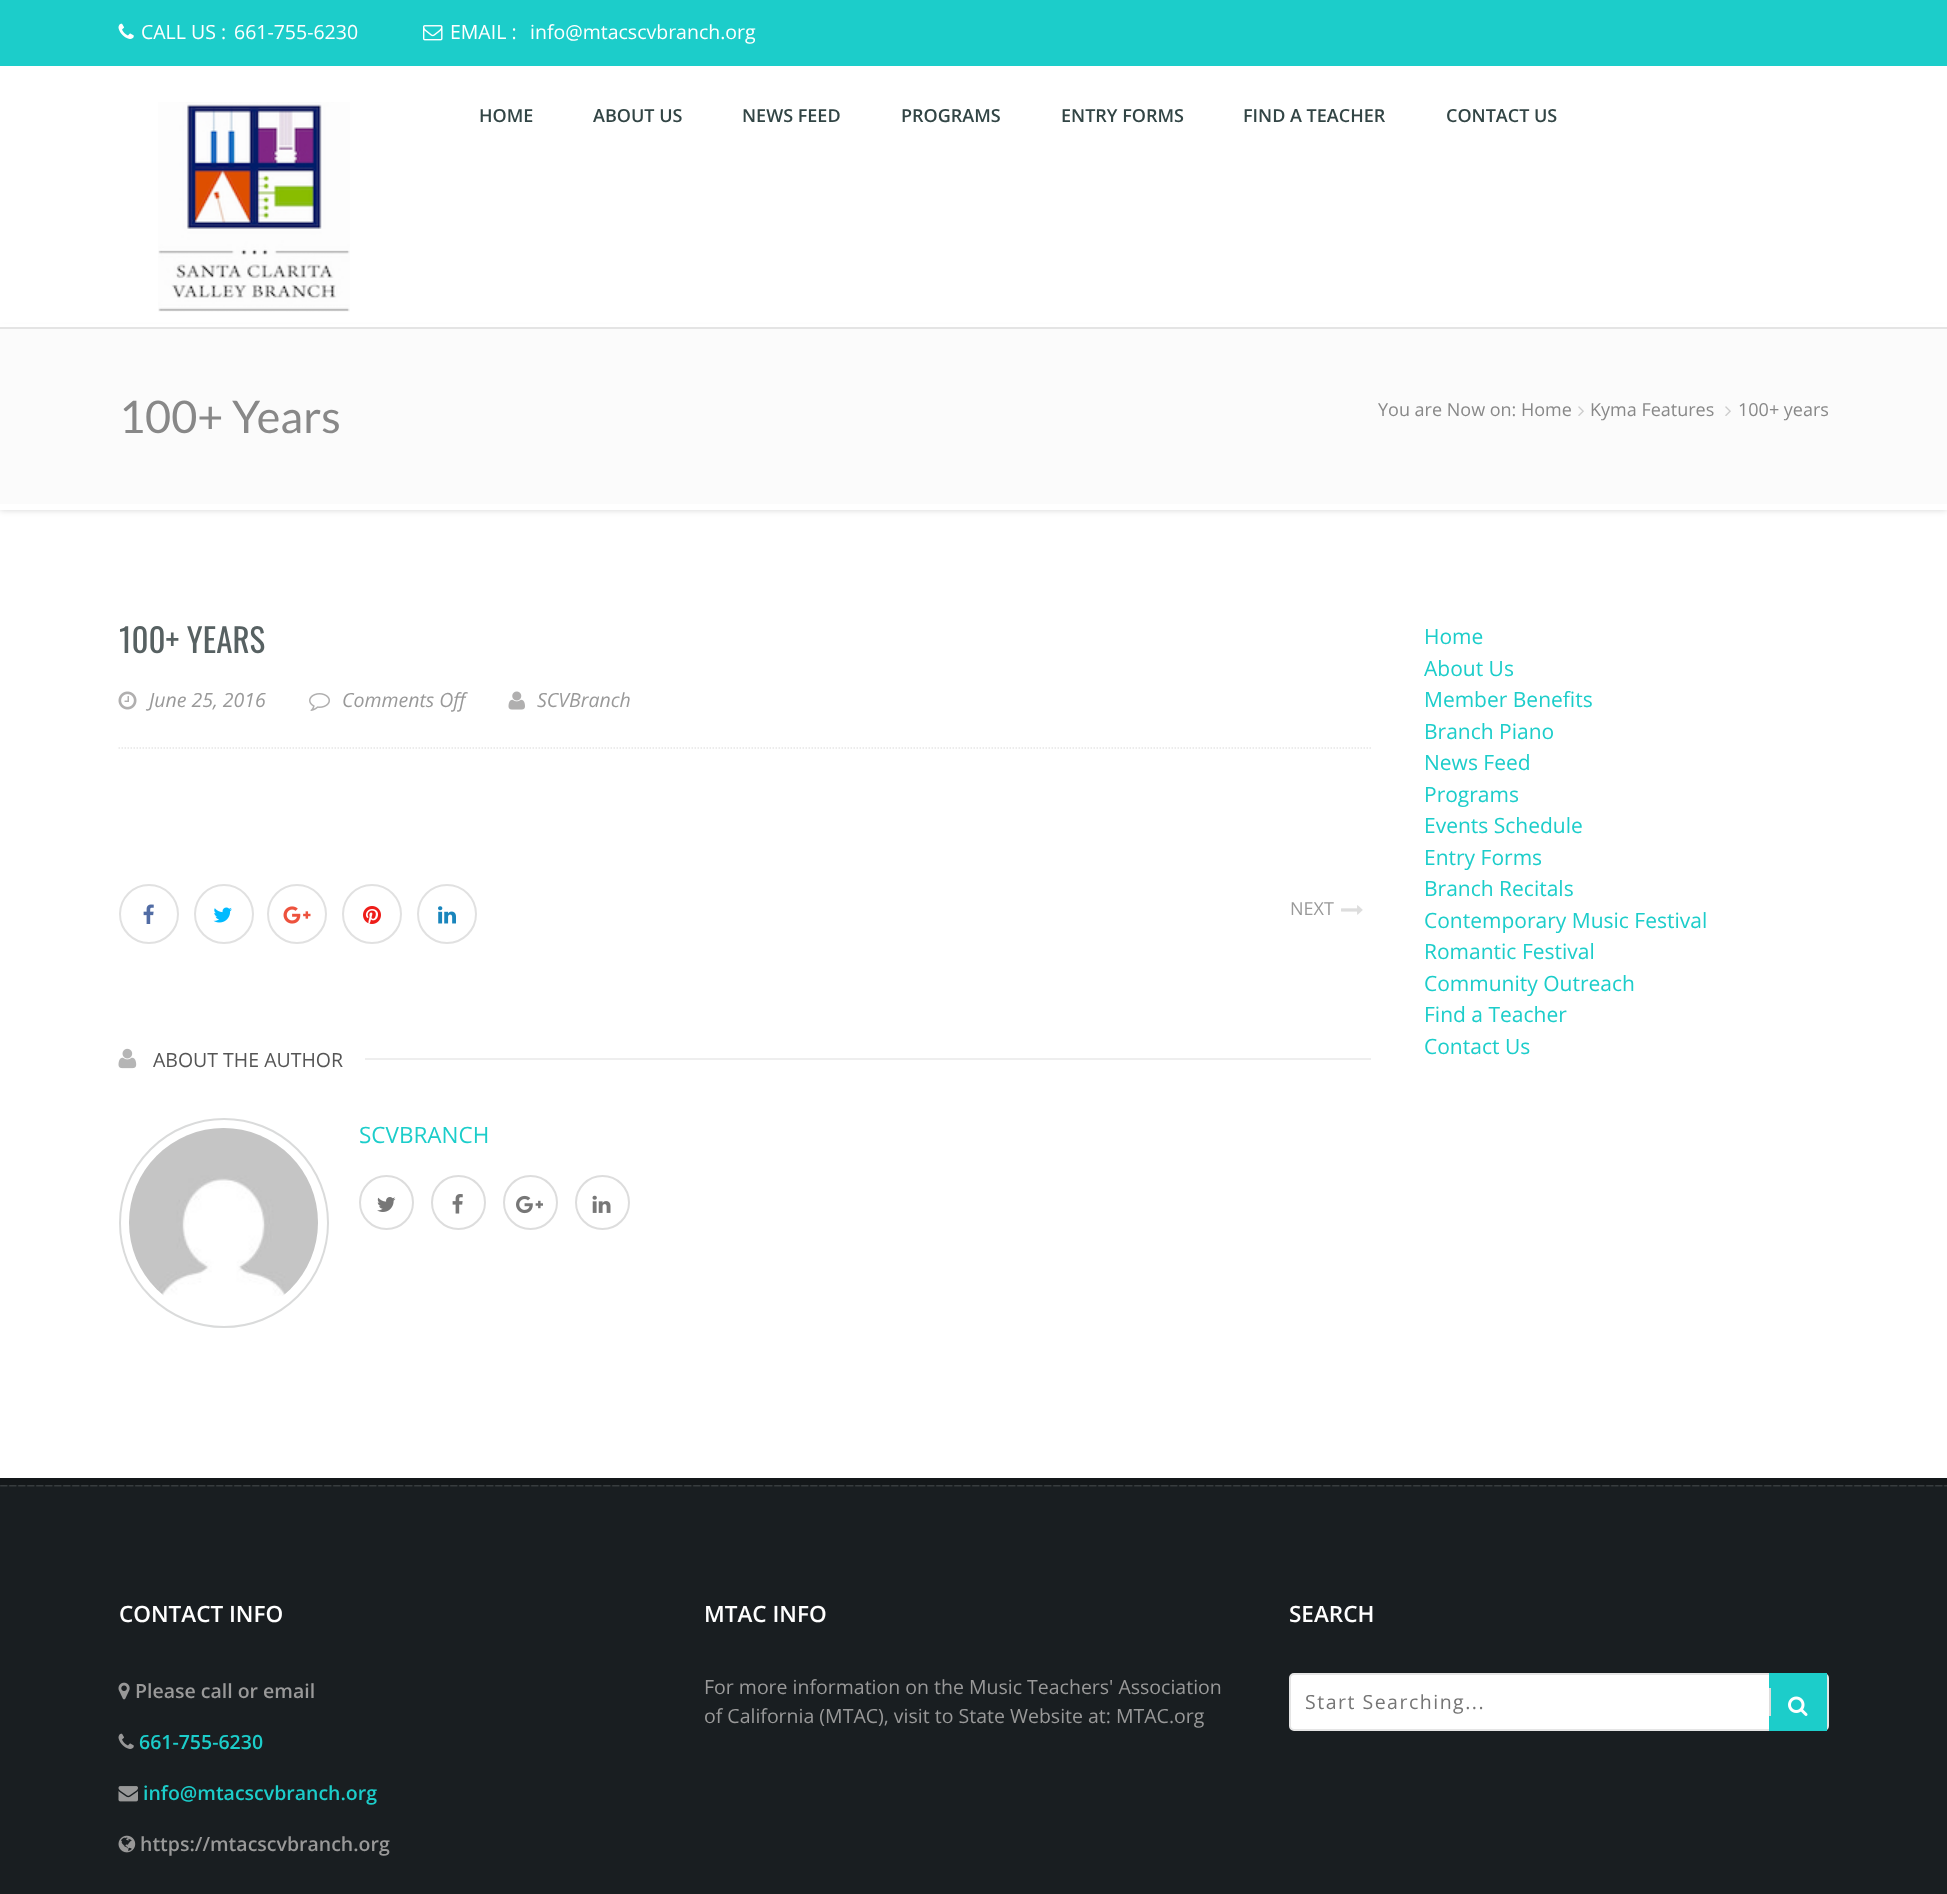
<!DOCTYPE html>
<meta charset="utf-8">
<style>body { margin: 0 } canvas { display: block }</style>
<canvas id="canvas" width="1947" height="1894"></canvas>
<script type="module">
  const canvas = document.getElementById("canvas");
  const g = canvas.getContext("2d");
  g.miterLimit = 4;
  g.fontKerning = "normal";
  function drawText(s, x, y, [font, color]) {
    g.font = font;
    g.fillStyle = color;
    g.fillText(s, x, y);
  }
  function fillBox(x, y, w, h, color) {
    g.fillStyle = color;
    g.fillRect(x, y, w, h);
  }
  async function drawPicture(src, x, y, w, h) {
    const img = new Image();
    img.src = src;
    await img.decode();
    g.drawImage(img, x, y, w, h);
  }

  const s1 = ["19.5px Open Sans", "#FFFFFF"];
  const s2 = ["600 18px Open Sans", "#324545"];
  const s3 = ["45px Lato", "#888888"];
  const s4 = ["18px Open Sans", "#888888"];
  const s5 = ["33px Oswald", "#576162"];
  const s6 = ["italic 19.5px Open Sans", "#999999"];
  const s7 = ["18px Open Sans", "#999999"];
  const s8 = ["19.5px Open Sans", "#555555"];
  const s9 = ["22.5px Open Sans", "#1CCDCA"];
  const s10 = ["21px Open Sans", "#1CCDCA"];
  const s11 = ["600 22.5px Open Sans", "#FFFFFF"];
  const s12 = ["600 19.5px Open Sans", "#999999"];
  const s13 = ["600 19.5px Open Sans", "#1CCDCA"];
  const s14 = ["19.5px Open Sans", "#999999"];
  const s15 = ["19.5px Open Sans", "#757575"];

  fillBox(0, 0, 1947, 1894, "#FFFFFF");
  fillBox(0, 0, 1947, 66, "#1CCDCA");
  await drawPicture("pic1.png", 118, 23, 16, 16);
  drawText("CALL US :", 141, 39, s1);
  drawText("661-755-6230", 234, 39, s1);
  await drawPicture("pic2.png", 423, 25, 20, 16);
  drawText("EMAIL :", 450, 39, s1);
  drawText("info@mtacscvbranch.org", 530, 39, s1);
  g.fillStyle = "rgba(0, 0, 0, 0.17)";
  g.filter = "blur(3px)";
  g.beginPath();
  g.rect(0, 329, 1947, 181);
  g.fill();
  g.filter = "none";
  fillBox(0, 324, 1947, 3, "#FFFFFF");
  fillBox(0, 327, 1947, 2, "#E4E4E4");
  await drawPicture("pic3.png", 158, 102, 192, 210);
  drawText("HOME", 479, 122, s2);
  drawText("ABOUT US", 593, 122, s2);
  drawText("NEWS FEED", 742, 122, s2);
  drawText("PROGRAMS", 901, 122, s2);
  drawText("ENTRY FORMS", 1061, 122, s2);
  drawText("FIND A TEACHER", 1243, 122, s2);
  drawText("CONTACT US", 1446, 122, s2);
  fillBox(0, 329, 1947, 175, "#FBFBFB");
  fillBox(0, 504, 1947, 6, "#FFFFFF");
  drawText("100+ Years", 119, 433, s3);
  drawText("You are Now on: Home", 1378, 416, s4);
  await drawPicture("pic4.png", 1578, 406, 6, 10);
  drawText("Kyma Features", 1590, 416, s4);
  await drawPicture("pic4.png", 1725, 406, 6, 10);
  drawText("100+ years", 1738, 416, s4);
  drawText("100+ YEARS", 119, 653, s5);
  g.beginPath();
  g.moveTo(118.5, 748);
  g.lineTo(1371, 748);
  g.strokeStyle = "#E6E6E6";
  g.lineWidth = 1.5;
  g.setLineDash([1.5, 1.5]);
  g.stroke();
  await drawPicture("pic5.png", 118, 691, 19, 19);
  drawText("June 25, 2016", 149, 707, s6);
  await drawPicture("pic6.png", 309, 693, 21, 18);
  drawText("Comments Off", 342, 707, s6);
  await drawPicture("pic7.png", 508, 691, 17, 19);
  drawText("SCVBranch", 537, 707, s6);
  g.beginPath();
  g.arc(149, 914, 29, 0, Math.PI * 2);
  g.strokeStyle = "#E1E1E1";
  g.lineWidth = 2;
  g.setLineDash([]);
  g.stroke();
  await drawPicture("pic8.png", 143, 904, 11, 20);
  g.beginPath();
  g.arc(224, 914, 29, 0, Math.PI * 2);
  g.stroke();
  await drawPicture("pic9.png", 213, 907, 19, 16);
  g.beginPath();
  g.arc(297, 914, 29, 0, Math.PI * 2);
  g.stroke();
  await drawPicture("pic10.png", 283, 906, 28, 18);
  g.beginPath();
  g.arc(372, 914, 29, 0, Math.PI * 2);
  g.stroke();
  await drawPicture("pic11.png", 363, 906, 18, 18);
  g.beginPath();
  g.arc(447, 914, 29, 0, Math.PI * 2);
  g.stroke();
  await drawPicture("pic12.png", 438, 906, 18, 18);
  drawText("NEXT", 1290, 915, s7);
  await drawPicture("pic13.png", 1341, 905, 22, 10);
  await drawPicture("pic14.png", 118, 1048, 19, 21);
  drawText("ABOUT THE AUTHOR", 153, 1067, s8);
  fillBox(365, 1058, 1006, 2, "#EEEEEE");
  g.beginPath();
  g.arc(224, 1223, 104, 0, Math.PI * 2);
  g.strokeStyle = "#DADBDB";
  g.stroke();
  await drawPicture("pic15.png", 129, 1128, 189, 168);
  drawText("SCVBRANCH", 359, 1143, s9);
  g.beginPath();
  g.arc(386.5, 1202.5, 26.5, 0, Math.PI * 2);
  g.strokeStyle = "#DDDDDD";
  g.stroke();
  await drawPicture("pic16.png", 377, 1197, 19, 15);
  g.beginPath();
  g.arc(458.5, 1202.5, 26.5, 0, Math.PI * 2);
  g.stroke();
  await drawPicture("pic17.png", 452, 1194, 11, 20);
  g.beginPath();
  g.arc(530.5, 1202.5, 26.5, 0, Math.PI * 2);
  g.stroke();
  await drawPicture("pic18.png", 516, 1195, 27, 19);
  g.beginPath();
  g.arc(602.5, 1202.5, 26.5, 0, Math.PI * 2);
  g.stroke();
  await drawPicture("pic19.png", 592, 1195, 19, 18);
  drawText("Home", 1424, 644, s10);
  drawText("About Us", 1424, 676, s10);
  drawText("Member Benefits", 1424, 707, s10);
  drawText("Branch Piano", 1424, 739, s10);
  drawText("News Feed", 1424, 770, s10);
  drawText("Programs", 1424, 802, s10);
  drawText("Events Schedule", 1424, 833, s10);
  drawText("Entry Forms", 1424, 865, s10);
  drawText("Branch Recitals", 1424, 896, s10);
  drawText("Contemporary Music Festival", 1424, 928, s10);
  drawText("Romantic Festival", 1424, 959, s10);
  drawText("Community Outreach", 1424, 991, s10);
  drawText("Find a Teacher", 1424, 1022, s10);
  drawText("Contact Us", 1424, 1054, s10);
  fillBox(0, 1485, 1947, 409, "#191E21");
  fillBox(0, 1478, 1947, 7, "#14181A");
  await drawPicture("pic20.png", 0, 1485, 1947, 2);
  drawText("CONTACT INFO", 119, 1622, s11);
  await drawPicture("pic21.png", 118, 1682, 12, 18);
  drawText("Please call or email", 135, 1698, s12);
  await drawPicture("pic22.png", 118, 1733, 16, 16);
  drawText("661-755-6230", 139, 1749, s13);
  await drawPicture("pic23.png", 118, 1786, 20, 16);
  drawText("info@mtacscvbranch.org", 143, 1800, s13);
  await drawPicture("pic24.png", 118, 1835, 18, 18);
  drawText("https://mtacscvbranch.org", 140, 1851, s12);
  drawText("MTAC INFO", 704, 1622, s11);
  drawText("For more information on the Music Teachers' Association", 704, 1694, s14);
  drawText("of California (MTAC), visit to State Website at: MTAC.org", 704, 1723, s14);
  drawText("SEARCH", 1289, 1622, s11);
  g.beginPath();
  g.roundRect(1290, 1674, 538, 56, 4);
  g.fill();
  g.strokeStyle = "#E5E5E5";
  g.stroke();
  g.letterSpacing = "1.5px";
  drawText("Start Searching...", 1305, 1709, s15);
  fillBox(1769, 1673, 58, 58, "#1CCDCA");
  fillBox(1769, 1688, 2, 28, "#DDDDDD");
  await drawPicture("pic25.png", 1788, 1696, 20, 20);
</script>
